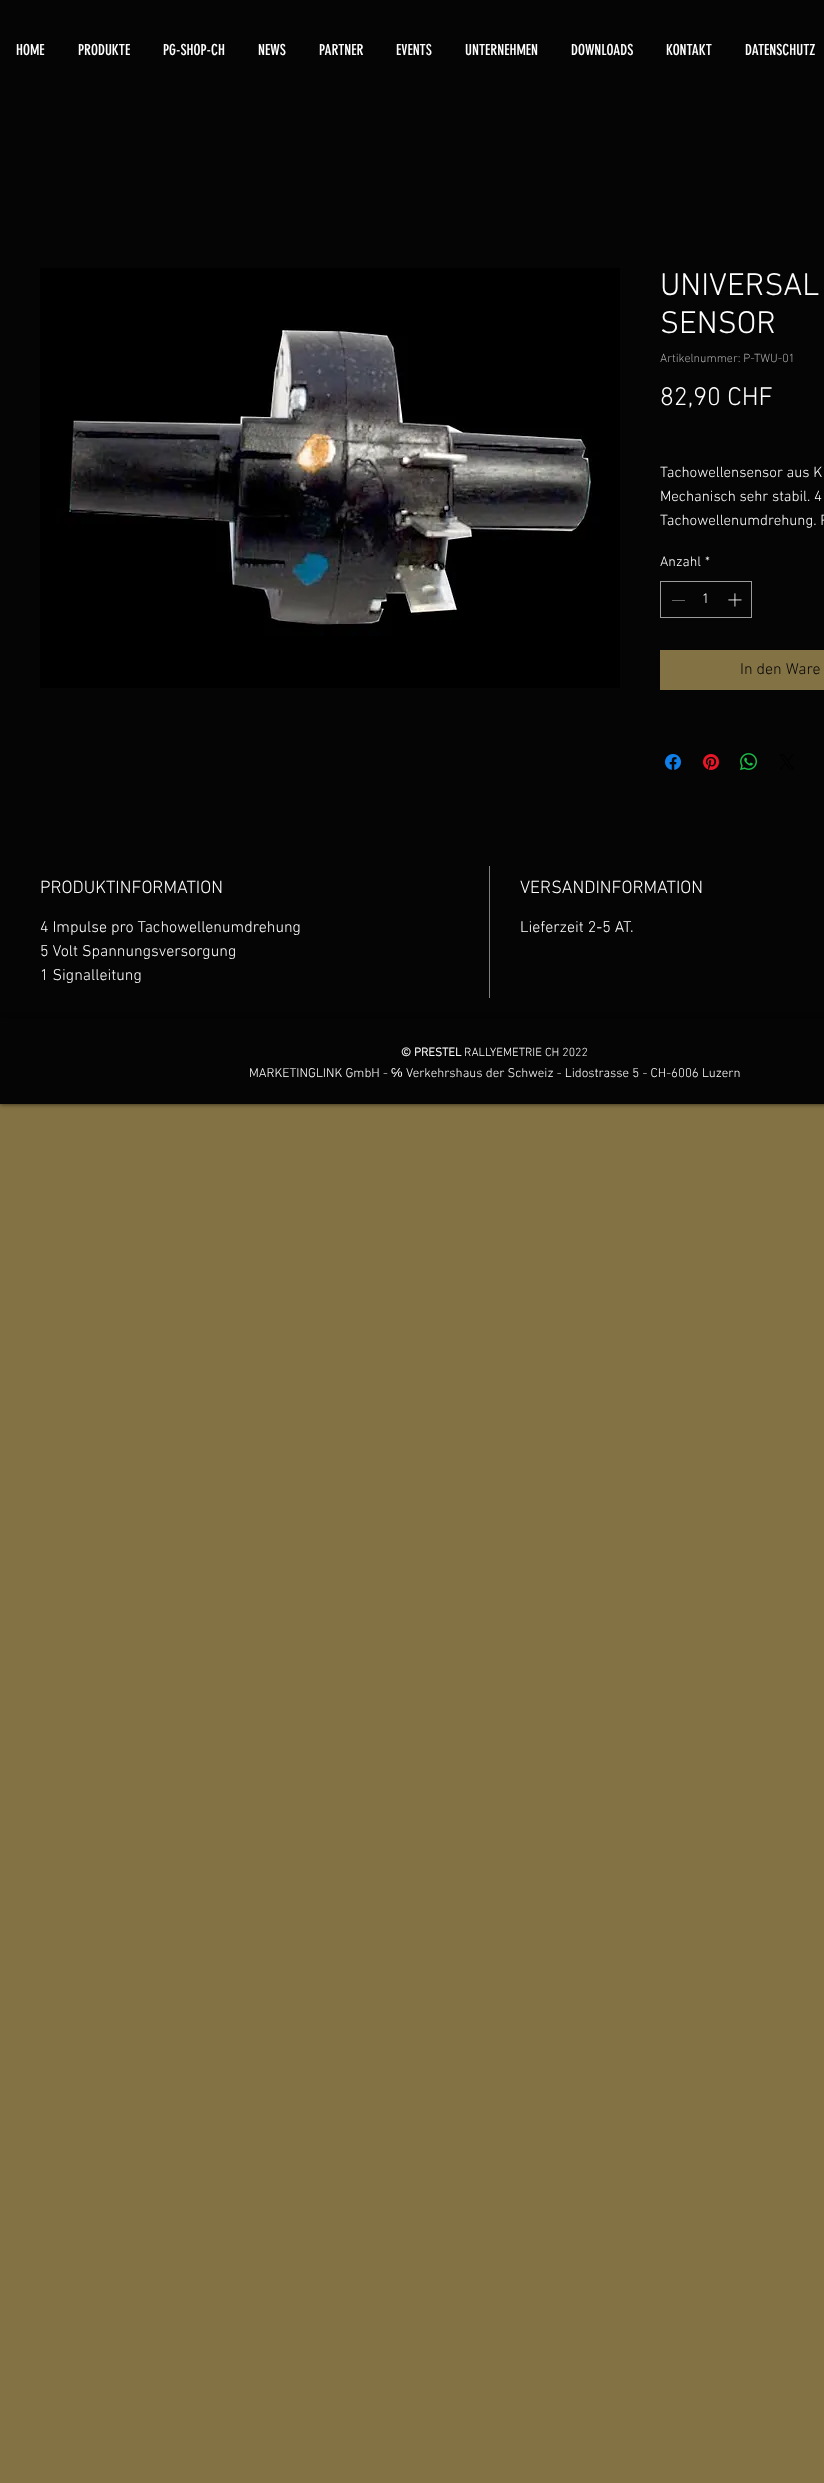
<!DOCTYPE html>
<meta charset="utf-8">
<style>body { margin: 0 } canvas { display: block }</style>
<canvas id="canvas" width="824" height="2483"></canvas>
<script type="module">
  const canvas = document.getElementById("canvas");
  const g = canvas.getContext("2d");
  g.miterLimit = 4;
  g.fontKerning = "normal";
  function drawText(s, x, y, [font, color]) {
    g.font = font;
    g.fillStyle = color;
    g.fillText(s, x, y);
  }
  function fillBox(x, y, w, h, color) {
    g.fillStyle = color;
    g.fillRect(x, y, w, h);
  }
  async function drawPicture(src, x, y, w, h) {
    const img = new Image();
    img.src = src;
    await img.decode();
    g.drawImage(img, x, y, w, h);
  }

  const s1 = ["15px 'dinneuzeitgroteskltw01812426'", "#FFFFFF"];
  const s2 = ["300 32px 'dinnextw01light'", "#FFFFFF"];
  const s3 = ["300 12px 'dinnextw01light'", "#AAAAAA"];
  const s4 = ["300 26px 'dinnextw01light'", "#FFFFFF"];
  const s5 = ["300 15px 'dinnextw01light'", "#FFFFFF"];
  const s6 = ["300 14px 'dinnextw01light'", "#FFFFFF"];
  const s7 = ["300 16px 'dinnextw01light'", "#050505"];
  const s8 = ["300 18px 'dinnextw01light'", "#FFFFFF"];
  const s9 = ["300 16px 'dinnextw01light'", "#FFFFFF"];
  const s10 = ["bold 12px 'dinnextw01light'", "#FFFFFF"];
  const s11 = ["300 12px 'dinnextw01light'", "#FFFFFF"];
  const s12 = ["300 13px 'dinnextw01light'", "#FFFFFF"];
  const s13 = ["13px Liberation Sans", "#FFFFFF"];

  fillBox(0, 0, 824, 2483, "#837244");
  fillBox(0, 0, 824, 1018, "#050505");
  drawText("HOME", 16, 55, s1);
  drawText("PRODUKTE", 78, 55, s1);
  drawText("PG-SHOP-CH", 163, 55, s1);
  drawText("NEWS", 258, 55, s1);
  drawText("PARTNER", 319, 55, s1);
  drawText("EVENTS", 396, 55, s1);
  drawText("UNTERNEHMEN", 465, 55, s1);
  drawText("DOWNLOADS", 571, 55, s1);
  drawText("KONTAKT", 666, 55, s1);
  drawText("DATENSCHUTZ", 745, 55, s1);
  await drawPicture("pic1.png", 40, 268, 580, 420);
  drawText("UNIVERSAL", 660, 295, s2);
  drawText("SENSOR", 660, 333, s2);
  drawText("Artikelnummer: P-TWU-01", 660, 362, s3);
  drawText("82,90 CHF", 660, 405, s4);
  drawText("Tachowellensensor aus K", 660, 477, s5);
  drawText("Mechanisch sehr stabil. 4", 660, 501, s5);
  drawText("Tachowellenumdrehung. P", 660, 525, s5);
  drawText("Anzahl", 660, 566, s6);
  drawText("*", 705, 566, s6);
  g.strokeStyle = "#9B9B9B";
  g.strokeRect(660.5, 581.5, 91, 36);
  fillBox(672, 600, 13, 1, "#666666");
  drawText("1", 702, 603, s6);
  await drawPicture("pic2.png", 728, 593, 14, 14);
  fillBox(660, 650, 164, 40, "#837244");
  drawText("In den Ware", 740, 674, s7);
  await drawPicture("pic3.png", 665, 754, 16, 16);
  await drawPicture("pic4.png", 703, 754, 16, 16);
  await drawPicture("pic5.png", 740, 753, 17, 17);
  await drawPicture("pic6.png", 780, 754, 14, 16);
  fillBox(489, 866, 1, 132, "#808080");
  drawText("PRODUKTINFORMATION", 40, 893, s8);
  drawText("4 Impulse pro Tachowellenumdrehung", 40, 932, s9);
  drawText("5 Volt Spannungsversorgung", 40, 956, s9);
  drawText("1 Signalleitung", 40, 980, s9);
  drawText("VERSANDINFORMATION", 520, 893, s8);
  drawText("Lieferzeit 2-5 AT.", 520, 932, s9);
  g.fillStyle = "rgba(0, 0, 0, 0.7)";
  g.filter = "blur(2.5px)";
  g.beginPath();
  g.rect(0, 1018, 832, 86);
  g.fill();
  g.filter = "none";
  fillBox(0, 1018, 824, 86, "#050505");
  drawText("© PRESTEL", 401, 1056, s10);
  drawText("RALLYEMETRIE CH 2022", 464, 1056, s11);
  drawText("MARKETINGLINK GmbH -", 249, 1077, s12);
  drawText("℅", 391, 1077, s13);
  drawText("Verkehrshaus der Schweiz - Lidostrasse 5 - CH-6006 Luzern", 406, 1077, s12);
</script>
